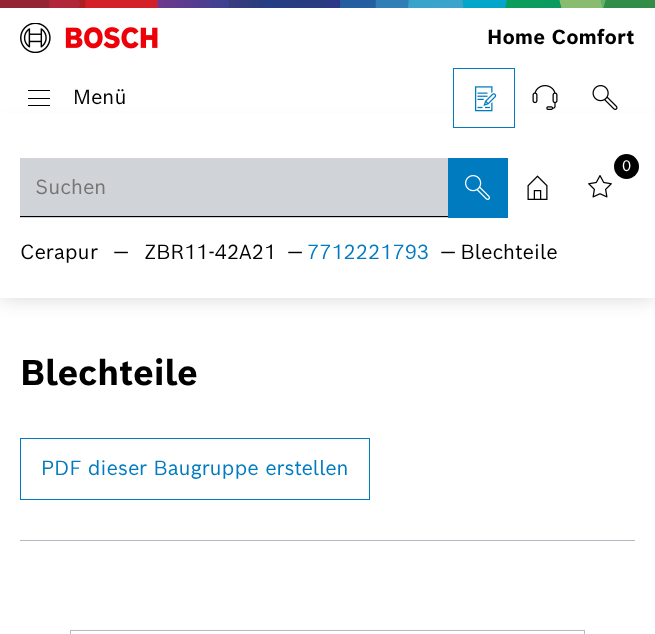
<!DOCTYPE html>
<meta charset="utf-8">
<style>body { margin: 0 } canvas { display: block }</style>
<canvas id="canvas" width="655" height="634"></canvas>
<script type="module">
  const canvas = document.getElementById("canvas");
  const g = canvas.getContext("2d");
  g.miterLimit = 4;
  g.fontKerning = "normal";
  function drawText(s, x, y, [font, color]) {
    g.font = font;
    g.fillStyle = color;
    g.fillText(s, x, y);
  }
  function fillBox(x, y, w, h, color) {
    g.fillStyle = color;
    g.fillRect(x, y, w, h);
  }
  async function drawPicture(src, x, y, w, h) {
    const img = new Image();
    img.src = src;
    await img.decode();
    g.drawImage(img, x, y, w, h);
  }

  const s1 = ["bold 20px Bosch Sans", "#000000"];
  const s2 = ["20px Bosch Sans", "#000000"];
  const s3 = ["15px Bosch Sans", "#FFFFFF"];
  const s4 = ["20px Bosch Sans", "#757575"];
  const s5 = ["20px Bosch Sans", "#007BC0"];
  const s6 = ["bold 35px Bosch Sans", "#000000"];

  fillBox(0, 0, 655, 634, "#FFFFFF");
  await drawPicture("pic1.png", 0, 0, 655, 8);
  await drawPicture("pic2.png", 20, 23, 138, 30);
  drawText("Home Comfort", 487, 44, s1);
  g.fillStyle = "rgba(0, 0, 0, 0.16)";
  g.filter = "blur(10px)";
  g.beginPath();
  g.rect(0, 128, 655, 170);
  g.fill();
  g.filter = "none";
  fillBox(0, 113, 655, 185, "#FFFFFF");
  g.strokeStyle = "#007BC0";
  g.strokeRect(453.5, 68.5, 61, 59);
  await drawPicture("pic3.png", 475, 86, 22, 26);
  await drawPicture("pic4.png", 532, 85, 26, 25);
  await drawPicture("pic5.png", 592, 85, 26, 25);
  fillBox(28, 90, 22, 1, "#000000");
  fillBox(28, 98, 22, 1, "#000000");
  fillBox(28, 105, 22, 1, "#000000");
  drawText("Menü", 73, 104, s2);
  g.beginPath();
  g.arc(626.5, 166.5, 12.5, 0, Math.PI * 2);
  g.fill();
  drawText("0", 622, 171, s3);
  await drawPicture("pic6.png", 588, 175, 24, 23);
  await drawPicture("pic7.png", 527, 175, 21, 25);
  fillBox(20, 158, 428, 60, "#D0D4D8");
  fillBox(20, 216, 428, 1, "#000000");
  drawText("Suchen", 35, 194, s4);
  fillBox(448, 158, 60, 60, "#007BC0");
  await drawPicture("pic8.png", 465, 175, 25, 25);
  drawText("Cerapur  —  ZBR11-42A21", 20, 259, s2);
  drawText("—", 289, 259, s2);
  drawText("7712221793", 307, 259, s5);
  drawText("— Blechteile", 442, 259, s2);
  fillBox(20, 540, 615, 1, "#B2B9C0");
  drawText("Blechteile", 20, 385, s6);
  g.strokeRect(20.5, 438.5, 349, 61);
  drawText("PDF dieser Baugruppe erstellen", 41, 475, s5);
  g.strokeStyle = "#B2B9C0";
  g.strokeRect(70.5, 630.5, 514, 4);
</script>
